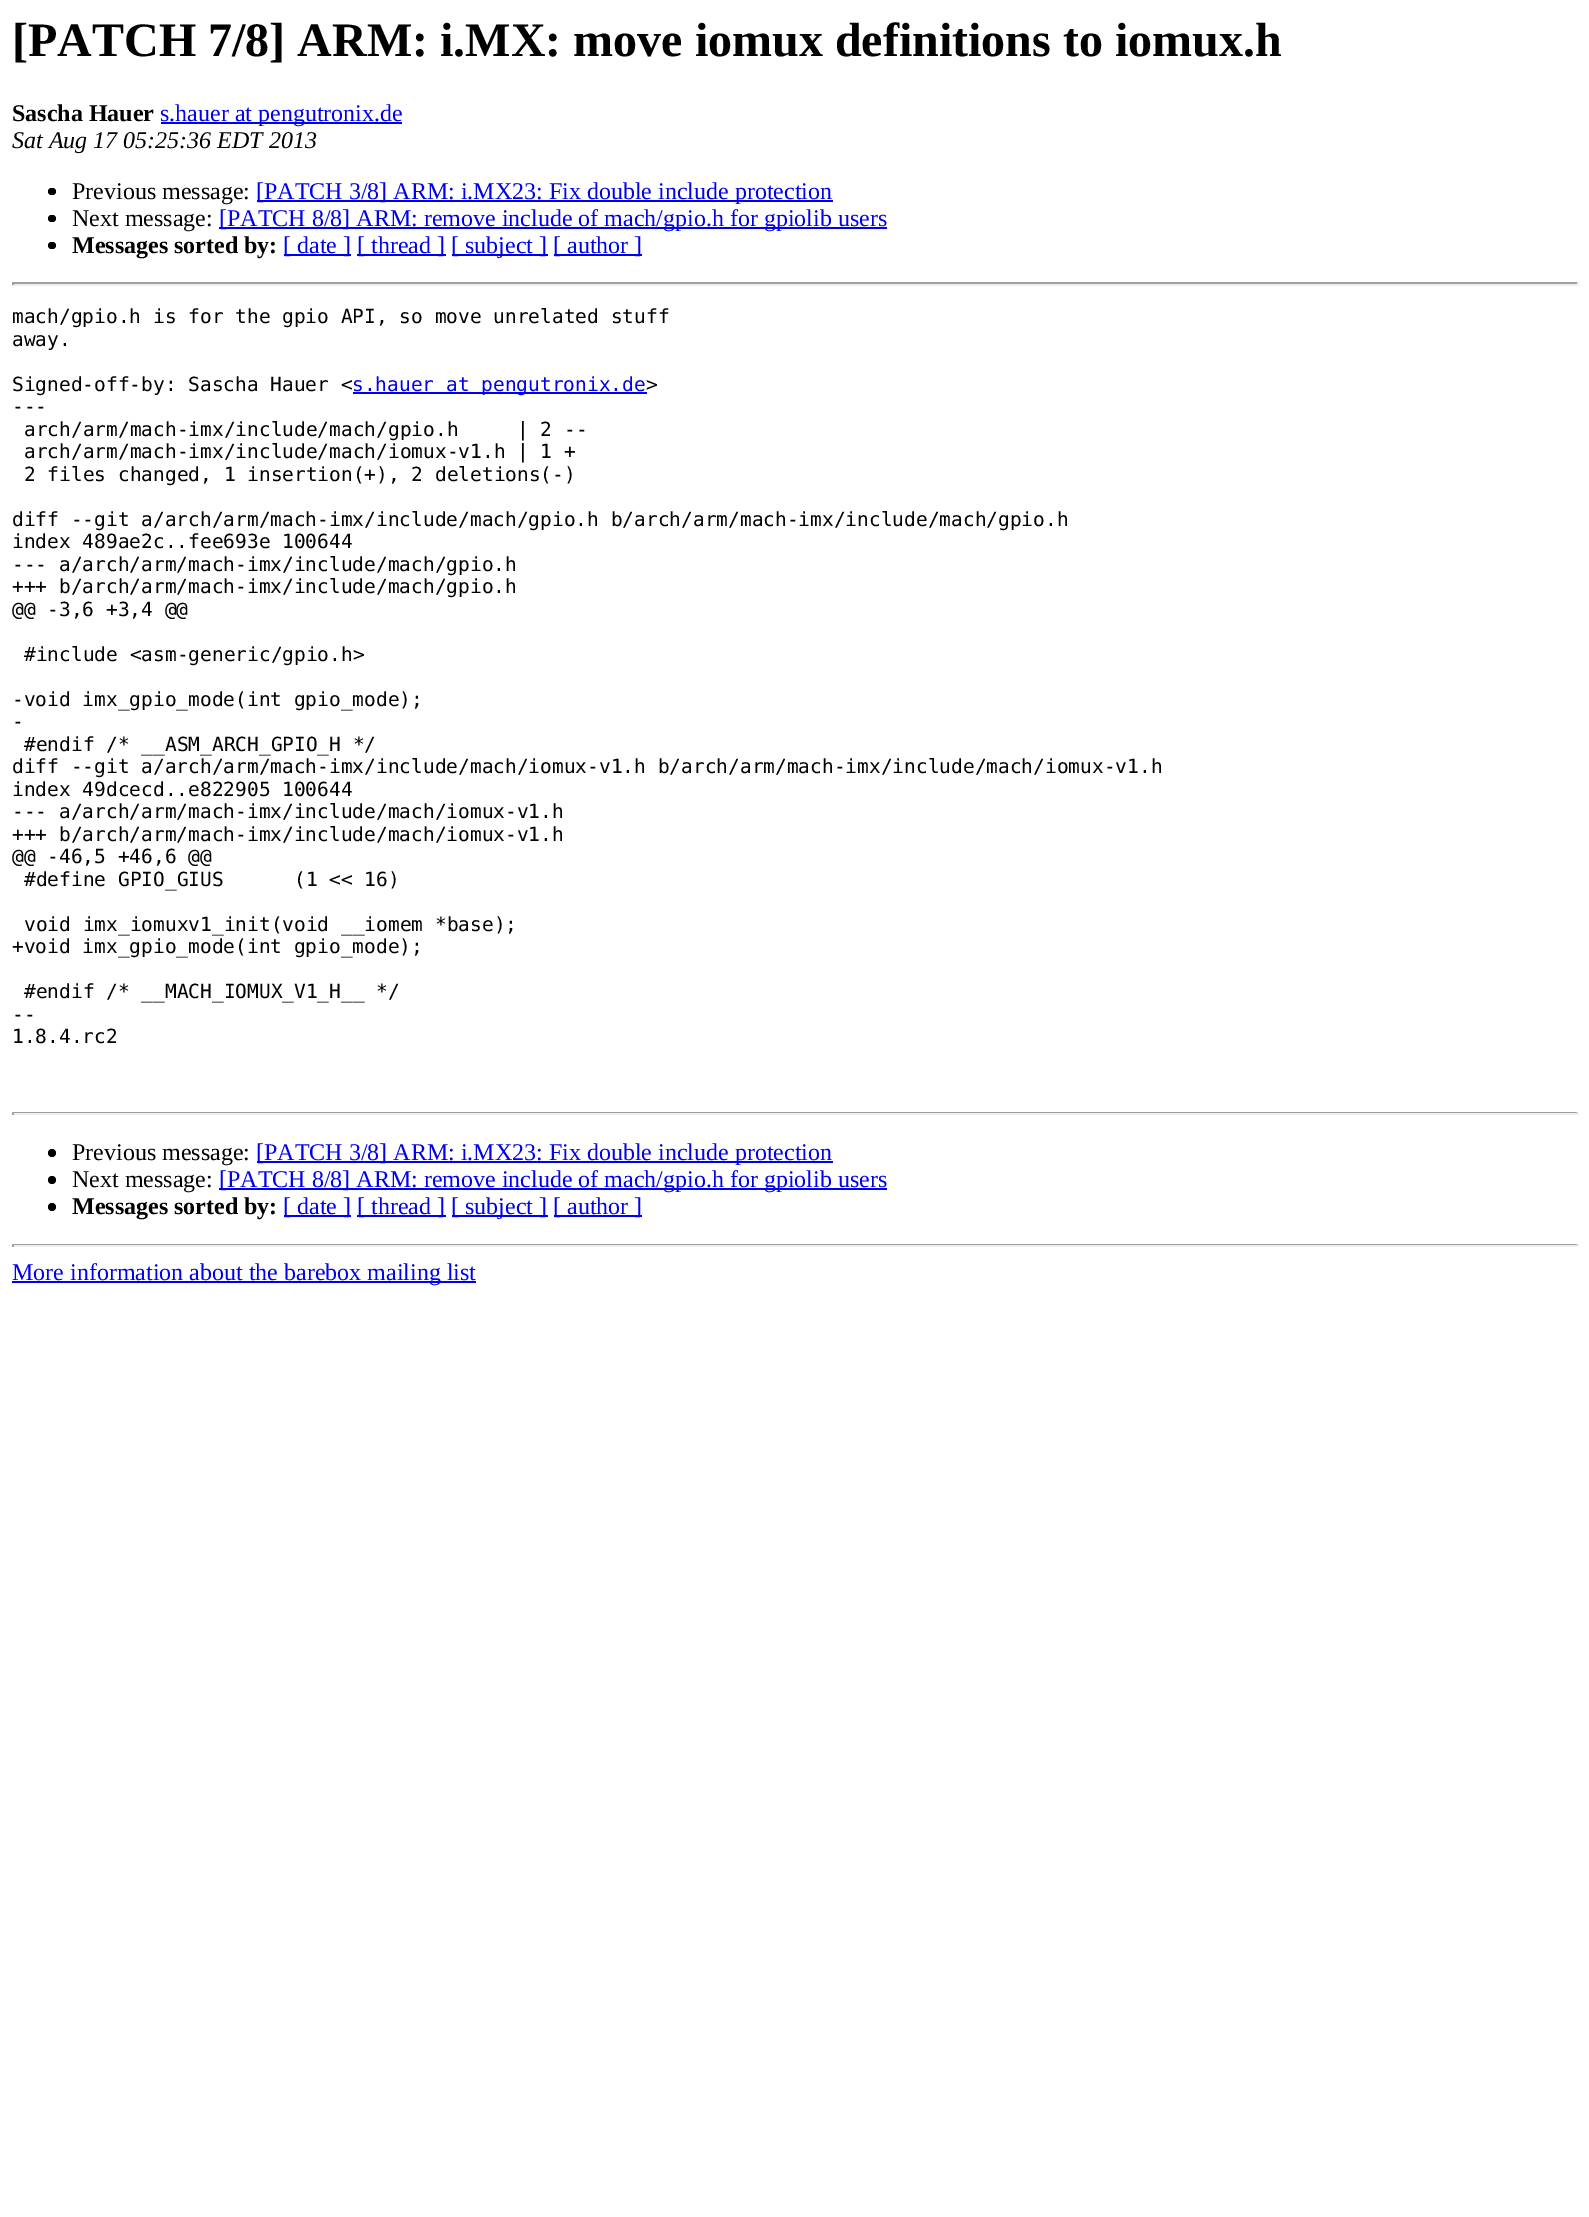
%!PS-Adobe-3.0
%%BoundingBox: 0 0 1589 2217
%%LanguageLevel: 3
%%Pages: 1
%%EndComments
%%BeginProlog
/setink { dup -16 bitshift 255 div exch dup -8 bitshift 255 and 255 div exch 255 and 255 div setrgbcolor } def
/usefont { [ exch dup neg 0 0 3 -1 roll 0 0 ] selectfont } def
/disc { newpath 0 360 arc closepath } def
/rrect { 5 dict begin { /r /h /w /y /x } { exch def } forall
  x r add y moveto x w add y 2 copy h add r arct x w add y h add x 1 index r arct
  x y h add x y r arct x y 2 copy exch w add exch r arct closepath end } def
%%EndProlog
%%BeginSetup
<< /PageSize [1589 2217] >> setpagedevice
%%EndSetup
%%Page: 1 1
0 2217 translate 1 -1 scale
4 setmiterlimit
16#FFFFFF setink
0 0 1589 2217 rectfill
/LiberationSerif-Bold 48 usefont
16#000000 setink
12 56 moveto ([PATCH 7/8] ARM: i.MX: move iomux definitions to iomux.h) show
/LiberationSerif-Bold 24 usefont
12 121 moveto (Sascha Hauer) show
16#0000EE setink
161 122 241 2 rectfill
/LiberationSerif-Regular 24 usefont
160 121 moveto (s.hauer at pengutronix.de) show
/LiberationSerif-Italic 24 usefont
16#000000 setink
12 148 moveto (Sat Aug 17 05:25:36 EDT 2013) show
48 188 8 7 3.5 rrect fill
/LiberationSerif-Regular 24 usefont
72 199 moveto (Previous message:) show
16#0000EE setink
257 200 576 2 rectfill
256 199 moveto ([PATCH 3/8] ARM: i.MX23: Fix double include protection) show
16#000000 setink
48 215 8 7 3.5 rrect fill
72 226 moveto (Next message:) show
16#0000EE setink
219 227 668 2 rectfill
219 226 moveto ([PATCH 8/8] ARM: remove include of mach/gpio.h for gpiolib users) show
16#000000 setink
48 242 8 7 3.5 rrect fill
/LiberationSerif-Bold 24 usefont
72 253 moveto (Messages sorted by:) show
16#0000EE setink
284 254 67 2 rectfill
/LiberationSerif-Regular 24 usefont
283 253 moveto ([ date ]) show
357 254 89 2 rectfill
357 253 moveto ([ thread ]) show
452 254 96 2 rectfill
451 253 moveto ([ subject ]) show
554 254 88 2 rectfill
553 253 moveto ([ author ]) show
[
    [12 282 1566 2 16#9F9F9F]
    [1577 282 2 3 16#EEEEEE]
    [12 284 1566 2 16#EEEEEE]
    [12 282 2 3 16#9F9F9F]
] { aload pop setink rectfill } forall
/DejaVuSansMono-Regular 19.5 usefont
16#000000 setink
[
    [(mach/gpio.h is for the gpio API, so move unrelated stuff) 12 323]
    [(away.) 12 346]
    [(Signed-off-by: Sascha Hauer <) 12 391]
] { aload pop moveto show } forall
16#0000EE setink
353 392 294 2 rectfill
352 391 moveto (s.hauer at pengutronix.de) show
16#000000 setink
[
    [(>) 646 391]
    [(---) 12 413]
    [(arch/arm/mach-imx/include/mach/gpio.h     | 2 --) 24 436]
    [(arch/arm/mach-imx/include/mach/iomux-v1.h | 1 +) 24 458]
    [(2 files changed, 1 insertion\(+\), 2 deletions\(-\)) 24 481]
    [(diff --git a/arch/arm/mach-imx/include/mach/gpio.h b/arch/arm/mach-imx/include/mach/gpio.h) 12 526]
    [(index 489ae2c..fee693e 100644) 12 548]
    [(--- a/arch/arm/mach-imx/include/mach/gpio.h) 12 571]
    [(+++ b/arch/arm/mach-imx/include/mach/gpio.h) 12 593]
    [(@@ -3,6 +3,4 @@) 12 616]
    [(#include <asm-generic/gpio.h>) 24 661]
    [(-void imx_gpio_mode\(int gpio_mode\);) 12 706]
    [(-) 12 728]
    [(#endif /* __ASM_ARCH_GPIO_H */) 24 751]
    [(diff --git a/arch/arm/mach-imx/include/mach/iomux-v1.h b/arch/arm/mach-imx/include/mach/iomux-v1.h) 12 773]
    [(index 49dcecd..e822905 100644) 12 796]
    [(--- a/arch/arm/mach-imx/include/mach/iomux-v1.h) 12 818]
    [(+++ b/arch/arm/mach-imx/include/mach/iomux-v1.h) 12 841]
    [(@@ -46,5 +46,6 @@) 12 863]
    [(#define GPIO_GIUS      \(1 << 16\)) 24 886]
    [(void imx_iomuxv1_init\(void __iomem *base\);) 24 931]
    [(+void imx_gpio_mode\(int gpio_mode\);) 12 953]
    [(#endif /* __MACH_IOMUX_V1_H__ */) 24 998]
    [(--) 12 1021]
    [(1.8.4.rc2) 12 1043]
] { aload pop moveto show } forall
[
    [12 1112 1566 1 16#9F9F9F]
    [1577 1112 2 3 16#EEEEEE]
    [12 1113 1566 2 16#EEEEEE]
    [12 1112 2 3 16#9F9F9F]
] { aload pop setink rectfill } forall
16#000000 setink
52 1153 4 disc fill
/LiberationSerif-Regular 24 usefont
72 1160 moveto (Previous message:) show
16#0000EE setink
257 1161 576 2 rectfill
256 1160 moveto ([PATCH 3/8] ARM: i.MX23: Fix double include protection) show
16#000000 setink
52 1180 4 disc fill
72 1187 moveto (Next message:) show
16#0000EE setink
219 1188 668 2 rectfill
219 1187 moveto ([PATCH 8/8] ARM: remove include of mach/gpio.h for gpiolib users) show
16#000000 setink
52 1207 4 disc fill
/LiberationSerif-Bold 24 usefont
72 1214 moveto (Messages sorted by:) show
16#0000EE setink
284 1215 67 2 rectfill
/LiberationSerif-Regular 24 usefont
283 1214 moveto ([ date ]) show
357 1215 89 2 rectfill
357 1214 moveto ([ thread ]) show
452 1215 96 2 rectfill
451 1214 moveto ([ subject ]) show
554 1215 88 2 rectfill
553 1214 moveto ([ author ]) show
[
    [12 1244 1566 1 16#9F9F9F]
    [1577 1244 2 3 16#EEEEEE]
    [12 1245 1566 2 16#EEEEEE]
    [12 1244 2 3 16#9F9F9F]
    [12 1281 464 2 16#0000EE]
] { aload pop setink rectfill } forall
12 1280 moveto (More information about the barebox mailing list) show
showpage
%%EOF
